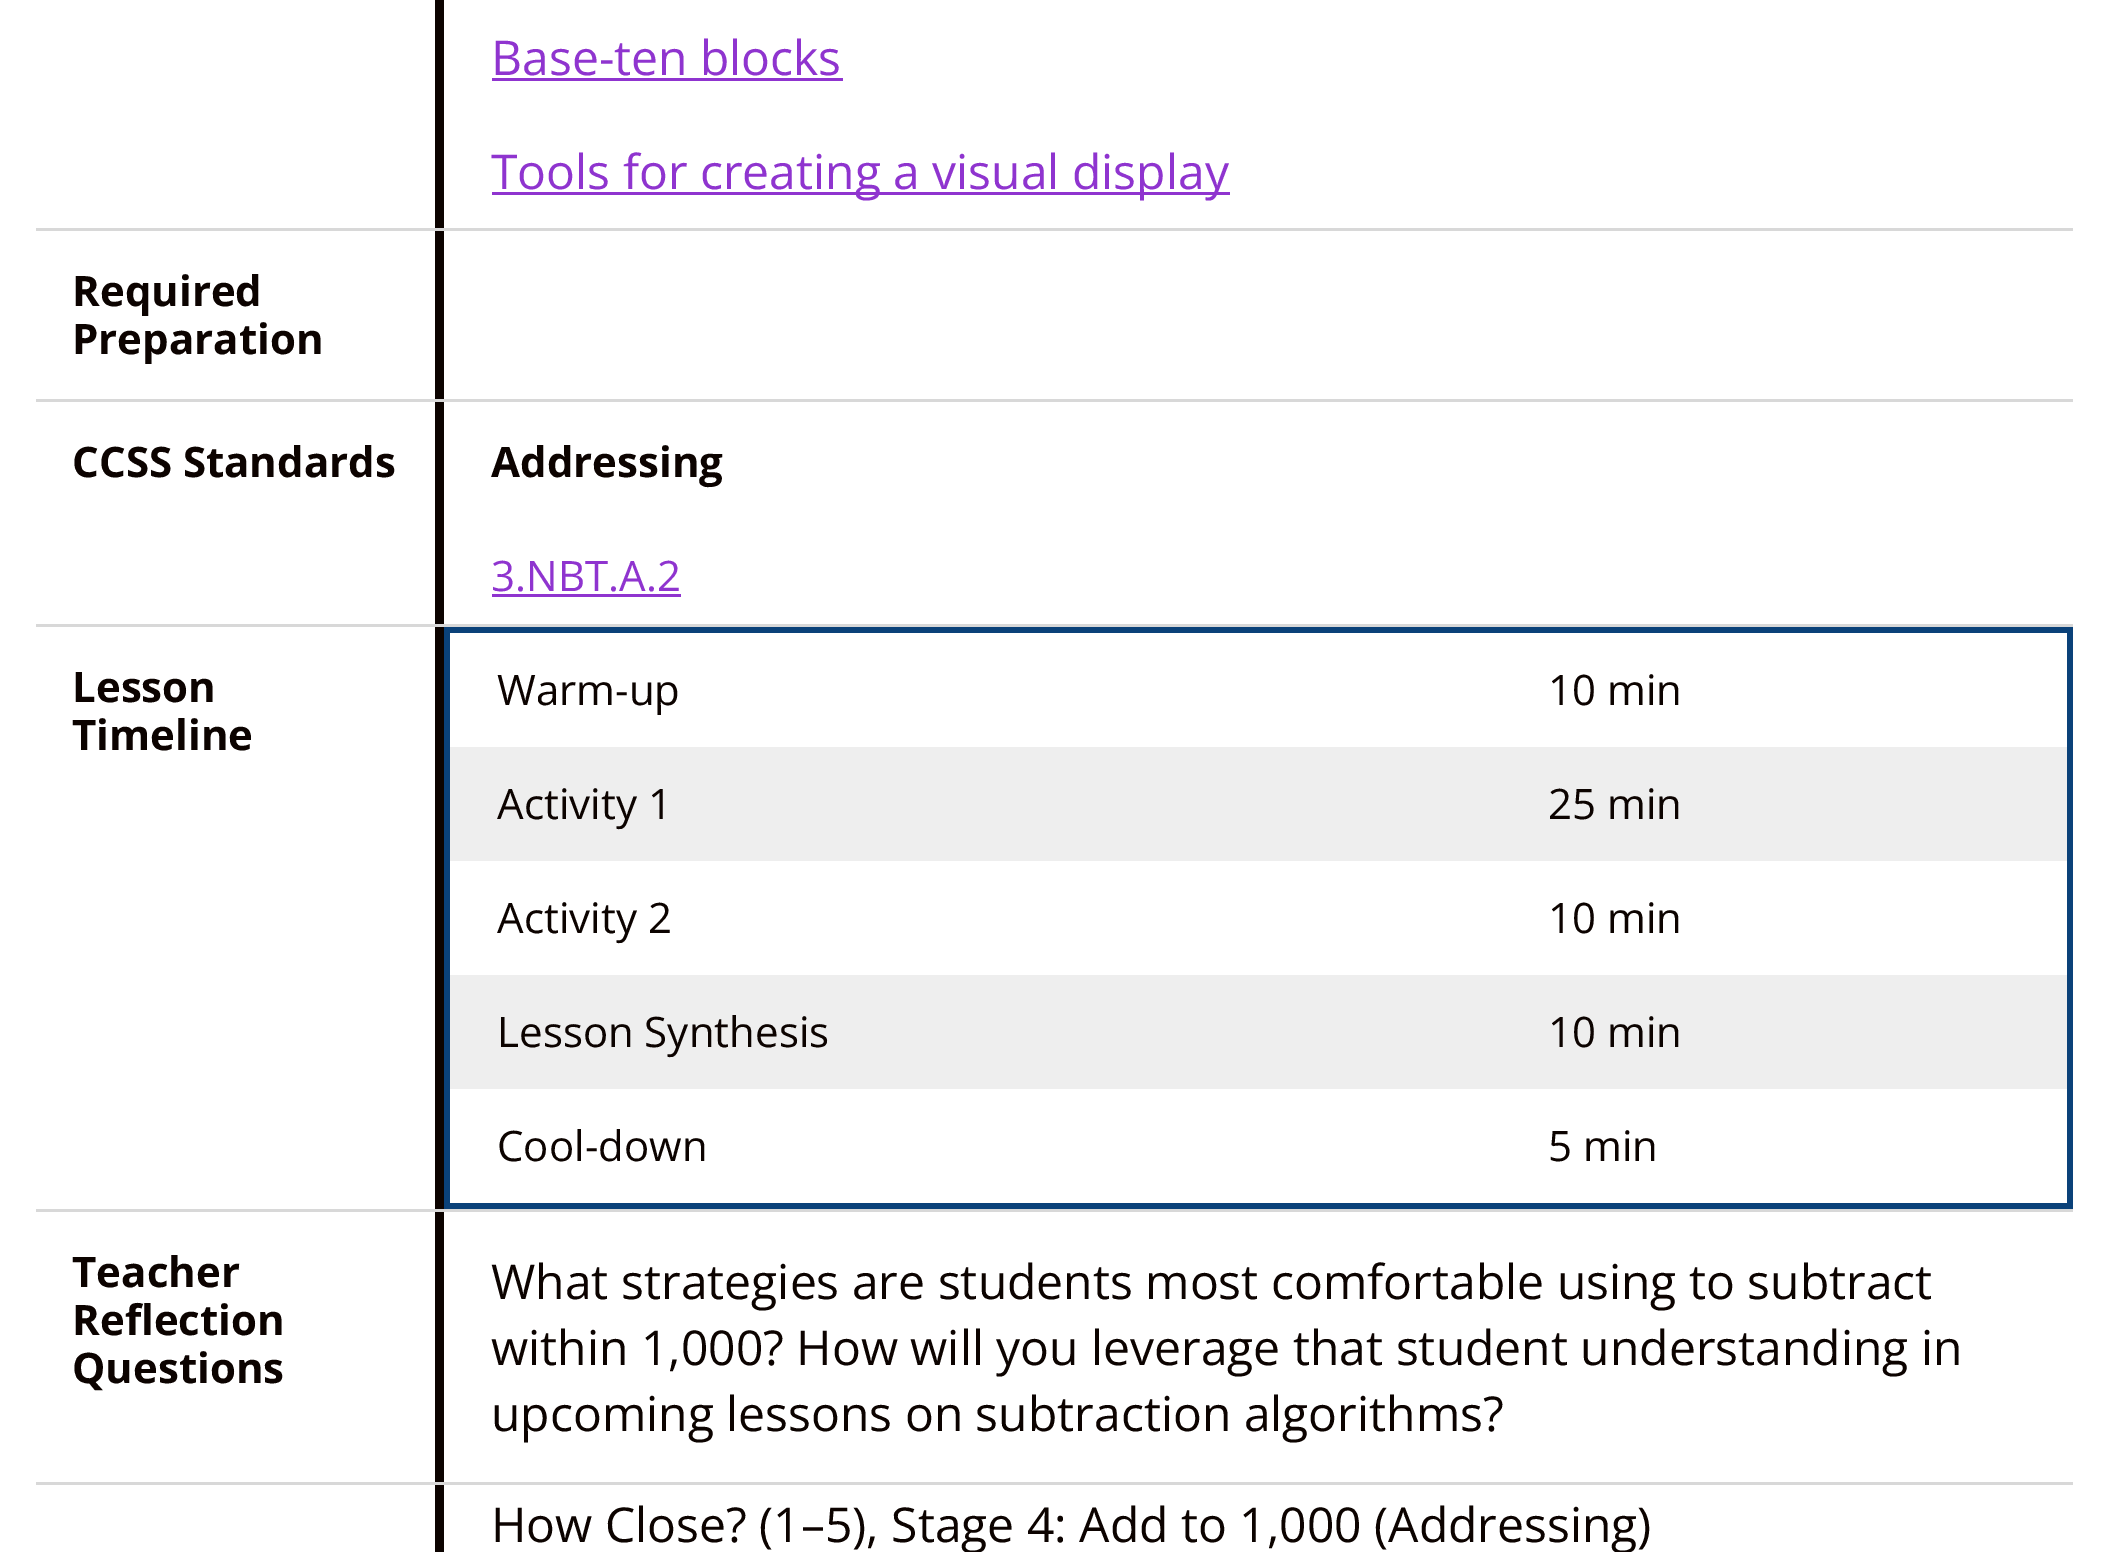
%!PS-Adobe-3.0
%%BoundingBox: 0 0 2107 1552
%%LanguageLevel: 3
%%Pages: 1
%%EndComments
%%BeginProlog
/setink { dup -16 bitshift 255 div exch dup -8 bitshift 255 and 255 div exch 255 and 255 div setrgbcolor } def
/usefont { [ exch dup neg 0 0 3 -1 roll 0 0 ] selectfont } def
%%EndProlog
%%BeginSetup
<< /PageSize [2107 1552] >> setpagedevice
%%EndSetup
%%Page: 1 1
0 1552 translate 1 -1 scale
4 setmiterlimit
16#FFFFFF setink
0 0 2107 1552 rectfill
16#0C0300 setink
435 0 9 228 rectfill
/OpenSans-Regular 48 usefont
16#8F34CF setink
491 75 moveto (Base-ten blocks) show
492 78 351 3 rectfill
492 192 738 3 rectfill
491 189 moveto (Tools for creating a visual display) show
16#D8D8D8 setink
36 228 2037 3 rectfill
16#0C0300 setink
435 231 9 168 rectfill
/OpenSans-Bold 42 usefont
72 306 moveto (Required) show
72 354 moveto (Preparation) show
16#D8D8D8 setink
36 399 2037 3 rectfill
16#0C0300 setink
435 402 9 222 rectfill
72 477 moveto (CCSS Standards) show
491 477 moveto (Addressing) show
/OpenSans-Regular 42 usefont
16#8F34CF setink
491 591 moveto (3.NBT.A.2) show
[
    [492 594 189 3 16#8F34CF]
    [36 624 2037 3 16#D8D8D8]
    [435 627 9 582 16#0C0300]
] { aload pop setink rectfill } forall
/OpenSans-Bold 42 usefont
72 702 moveto (Lesson) show
72 750 moveto (Timeline) show
[
    [444 627 1629 6 16#0A4179]
    [2067 627 6 582 16#0A4179]
    [444 1203 1629 6 16#0A4179]
    [444 627 6 582 16#0A4179]
] { aload pop setink rectfill } forall
/OpenSans-Regular 42 usefont
16#0C0300 setink
497 705 moveto (Warm-up) show
1548 705 moveto (10 min) show
16#EEEEEE setink
450 747 1617 114 rectfill
16#0C0300 setink
[
    [(Activity 1) 497 819]
    [(25 min) 1548 819]
    [(Activity 2) 497 933]
    [(10 min) 1548 933]
] { aload pop moveto show } forall
16#EEEEEE setink
450 975 1617 114 rectfill
16#0C0300 setink
[
    [(Lesson Synthesis) 497 1047]
    [(10 min) 1548 1047]
    [(Cool-down) 497 1161]
    [(5 min) 1548 1161]
] { aload pop moveto show } forall
16#D8D8D8 setink
36 1209 2037 3 rectfill
16#0C0300 setink
435 1212 9 270 rectfill
/OpenSans-Bold 42 usefont
[
    [(Teacher) 72 1287]
    [(Reflection) 72 1335]
    [(Questions) 72 1383]
] { aload pop moveto show } forall
/OpenSans-Regular 48 usefont
[
    [(What strategies are students most comfortable using to subtract) 491 1299]
    [(within 1,000? How will you leverage that student understanding in) 491 1365]
    [(upcoming lessons on subtraction algorithms?) 491 1431]
] { aload pop moveto show } forall
16#D8D8D8 setink
36 1482 2037 3 rectfill
16#0C0300 setink
435 1485 9 67 rectfill
491 1542 moveto (How Close? \(1–5\), Stage 4: Add to 1,000 \(Addressing\)) show
showpage
%%EOF
